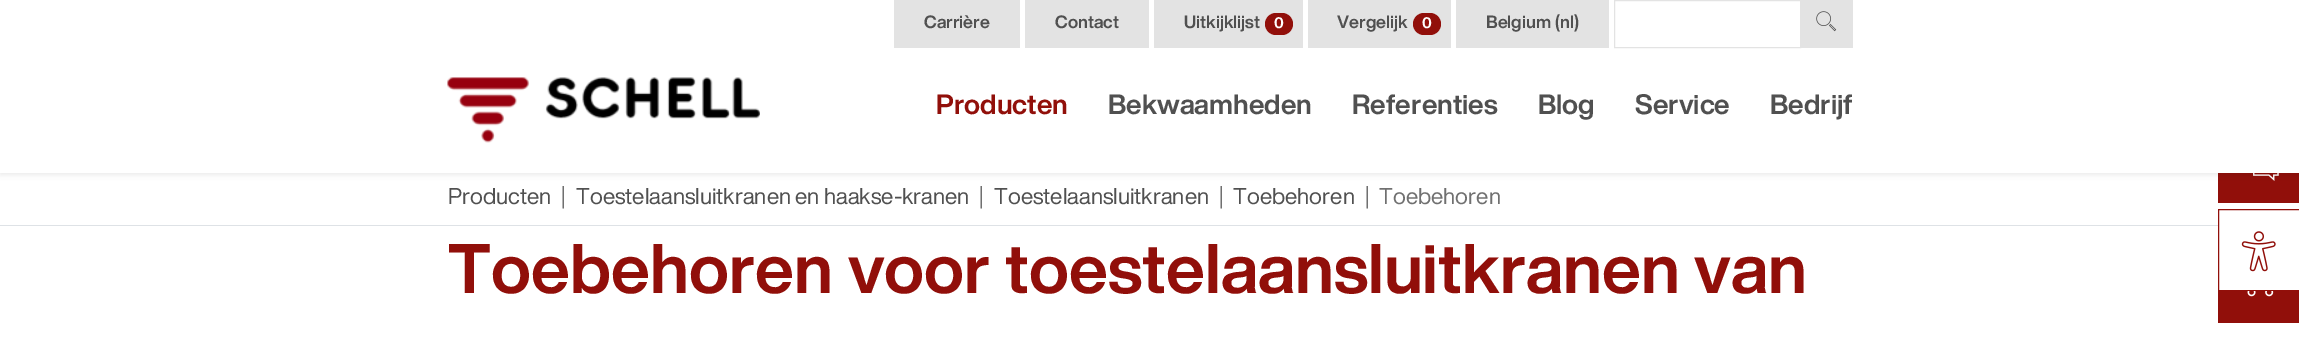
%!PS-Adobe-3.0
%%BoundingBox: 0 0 2299 358
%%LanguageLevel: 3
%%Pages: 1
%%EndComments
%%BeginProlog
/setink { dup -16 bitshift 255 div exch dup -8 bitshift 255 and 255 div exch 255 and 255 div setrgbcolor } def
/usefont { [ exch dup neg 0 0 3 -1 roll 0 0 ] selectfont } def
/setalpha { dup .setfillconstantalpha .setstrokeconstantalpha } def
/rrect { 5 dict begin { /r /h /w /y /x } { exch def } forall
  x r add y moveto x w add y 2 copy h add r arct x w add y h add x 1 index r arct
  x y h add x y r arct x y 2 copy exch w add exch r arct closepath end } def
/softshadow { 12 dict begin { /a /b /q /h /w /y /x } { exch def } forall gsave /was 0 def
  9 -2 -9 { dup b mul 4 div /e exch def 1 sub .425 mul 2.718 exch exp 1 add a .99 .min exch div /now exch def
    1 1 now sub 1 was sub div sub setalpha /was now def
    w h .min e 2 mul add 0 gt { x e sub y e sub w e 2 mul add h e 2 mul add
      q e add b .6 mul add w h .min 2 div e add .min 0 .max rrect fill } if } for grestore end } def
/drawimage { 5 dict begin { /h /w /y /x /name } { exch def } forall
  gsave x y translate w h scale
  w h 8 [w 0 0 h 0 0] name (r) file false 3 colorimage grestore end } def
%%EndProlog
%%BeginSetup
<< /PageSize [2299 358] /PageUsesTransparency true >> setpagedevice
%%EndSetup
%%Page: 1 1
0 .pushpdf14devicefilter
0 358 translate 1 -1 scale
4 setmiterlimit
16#FFFFFF setink
0 0 2299 358 rectfill
16#910F0A setink
2218 173 81 30 rectfill
(img3.raw) 2253 173 26 8 drawimage
gsave
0 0 moveto 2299 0 lineto 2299 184 lineto 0 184 lineto closepath 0 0 moveto 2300 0 lineto 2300 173 lineto 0 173 lineto closepath eoclip newpath
16#000000 setink
0 3 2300 172 0 2.5 0.07 softshadow
grestore
16#E3E3E3 setink
894 0 126 48 rectfill
/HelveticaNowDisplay-Bold 17.5 usefont
16#505050 setink
924 28 moveto (Carrière) show
16#E3E3E3 setink
1025 0 124 48 rectfill
16#505050 setink
1055 28 moveto (Contact) show
16#E3E3E3 setink
1154 0 149 48 rectfill
16#505050 setink
1184 28 moveto (Uitkijklijst) show
16#910F0A setink
1265 13 28 22 11 rrect fill
/HelveticaNowDisplay-Bold 15 usefont
16#FFFFFF setink
1274 28 moveto (0) show
16#E3E3E3 setink
1308 0 143 48 rectfill
/HelveticaNowDisplay-Bold 17.5 usefont
16#505050 setink
1337 28 moveto (Vergelijk) show
16#910F0A setink
1413 13 28 22 11 rrect fill
/HelveticaNowDisplay-Bold 15 usefont
16#FFFFFF setink
1422 28 moveto (0) show
16#E3E3E3 setink
1456 0 153 48 rectfill
/HelveticaNowDisplay-Bold 17.5 usefont
16#505050 setink
1486 28 moveto (Belgium \(nl\)) show
16#E3E3E3 setink
1614.5 0.5 186 47 rectstroke
1801 0 52 48 rectfill
(img1.raw) 1816 11 21 21 drawimage
(img2.raw) 447 77 313 66 drawimage
/HelveticaNowDisplay-Bold 27.5 usefont
16#910F0A setink
936 114 moveto (Producten) show
16#505050 setink
[
    [(Bekwaamheden) 1108 114]
    [(Referenties) 1352 114]
    [(Blog) 1538 114]
    [(Service) 1635 114]
    [(Bedrijf) 1770 114]
] { aload pop moveto show } forall
16#DEE2E6 setink
0 225 2218 1 rectfill
/HelveticaNowDisplay-Regular 22.5 usefont
16#505050 setink
448 204 moveto (Producten) show
16#707070 setink
561 204 moveto (|) show
16#505050 setink
576 204 moveto (Toestelaansluitkranen en haakse-kranen) show
16#707070 setink
979 204 moveto (|) show
16#505050 setink
994 204 moveto (Toestelaansluitkranen) show
16#707070 setink
1219 204 moveto (|) show
16#505050 setink
1233 204 moveto (Toebehoren) show
16#707070 setink
1365 204 moveto (|) show
1379 204 moveto (Toebehoren) show
/HelveticaNowDisplay-Bold 68.75 usefont
16#910F0A setink
448 293 moveto (Toebehoren voor toestelaansluitkranen van) show
2218.5 209.5 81 81 rectstroke
(img4.raw) 2241 231 35 41 drawimage
2218 291 81 32 rectfill
(img5.raw) 2247 291 27 6 drawimage
.poppdf14devicefilter showpage
%%EOF
